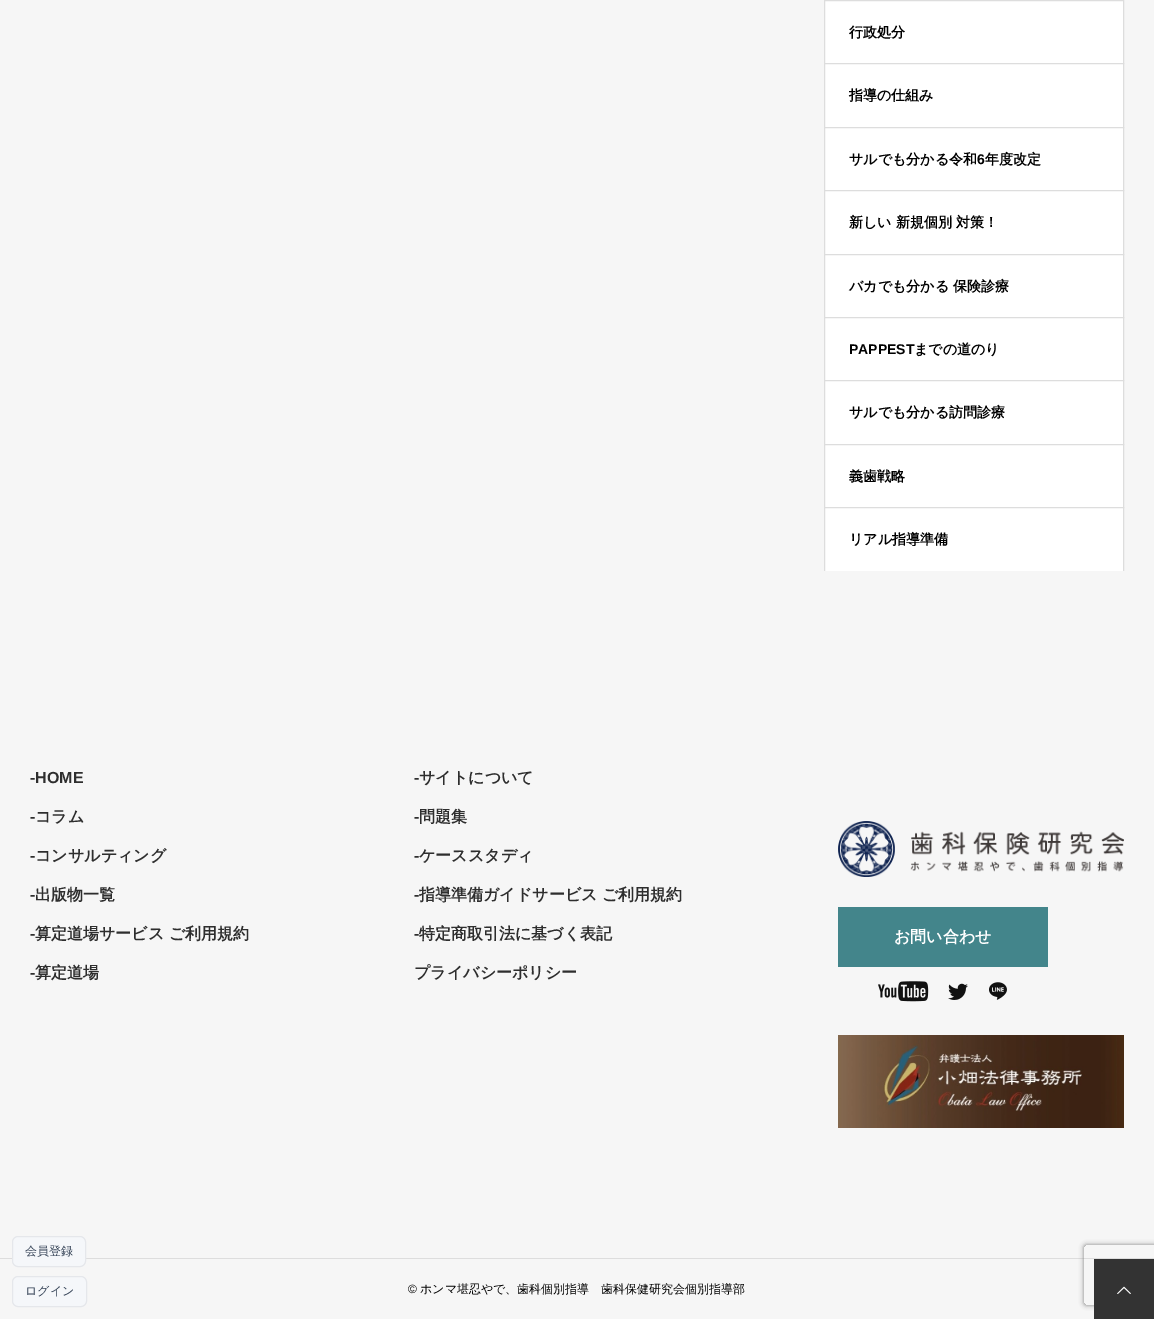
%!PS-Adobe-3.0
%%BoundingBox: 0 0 1154 1319
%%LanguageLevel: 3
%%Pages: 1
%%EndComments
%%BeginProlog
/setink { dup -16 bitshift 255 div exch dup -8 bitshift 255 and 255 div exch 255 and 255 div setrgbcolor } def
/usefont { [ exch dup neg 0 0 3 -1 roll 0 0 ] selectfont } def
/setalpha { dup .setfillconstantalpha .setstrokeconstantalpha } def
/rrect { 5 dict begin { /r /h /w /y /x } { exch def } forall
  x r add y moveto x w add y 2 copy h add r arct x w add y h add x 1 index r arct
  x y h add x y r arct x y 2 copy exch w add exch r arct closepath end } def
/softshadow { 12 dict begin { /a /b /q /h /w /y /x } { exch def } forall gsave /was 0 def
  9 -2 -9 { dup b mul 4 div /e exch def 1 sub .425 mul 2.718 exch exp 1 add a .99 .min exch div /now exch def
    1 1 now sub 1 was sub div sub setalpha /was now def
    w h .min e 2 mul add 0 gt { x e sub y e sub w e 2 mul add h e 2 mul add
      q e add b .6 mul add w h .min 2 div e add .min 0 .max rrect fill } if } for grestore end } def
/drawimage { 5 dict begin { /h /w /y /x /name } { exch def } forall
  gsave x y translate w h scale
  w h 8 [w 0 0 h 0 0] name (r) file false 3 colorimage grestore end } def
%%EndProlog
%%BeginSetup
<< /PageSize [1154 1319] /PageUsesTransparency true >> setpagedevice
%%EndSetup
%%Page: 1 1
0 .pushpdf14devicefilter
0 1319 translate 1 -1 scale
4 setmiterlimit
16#F6F6F6 setink
0 0 1154 1319 rectfill
16#FFFFFF setink
824.5 0.5 moveto 1123.5 0.5 lineto 1123.5 63.5 lineto 824.5 63.5 lineto closepath gsave fill grestore
16#DDDDDD setink
stroke
/WenQuanYiZenHei-Bold 14 usefont
16#000000 setink
849 37 moveto (行政処分) show
16#FFFFFF setink
824.5 63.5 moveto 1123.5 63.5 lineto 1123.5 127.5 lineto 824.5 127.5 lineto closepath gsave fill grestore
16#DDDDDD setink
stroke
16#000000 setink
849 100 moveto (指導の仕組み) show
16#FFFFFF setink
824.5 127.5 moveto 1123.5 127.5 lineto 1123.5 190.5 lineto 824.5 190.5 lineto closepath gsave fill grestore
16#DDDDDD setink
stroke
16#000000 setink
849 164 moveto (サルでも分かる令和) show
/LiberationSans-Bold 14 usefont
977 164 moveto (6) show
/WenQuanYiZenHei-Bold 14 usefont
985 164 moveto (年度改定) show
16#FFFFFF setink
824.5 190.5 moveto 1123.5 190.5 lineto 1123.5 254.5 lineto 824.5 254.5 lineto closepath gsave fill grestore
16#DDDDDD setink
stroke
16#000000 setink
849 227 moveto (新しい 新規個別 対策！) show
16#FFFFFF setink
824.5 254.5 moveto 1123.5 254.5 lineto 1123.5 317.5 lineto 824.5 317.5 lineto closepath gsave fill grestore
16#DDDDDD setink
stroke
16#000000 setink
849 291 moveto (バカでも分かる 保険診療) show
16#FFFFFF setink
824.5 317.5 moveto 1123.5 317.5 lineto 1123.5 380.5 lineto 824.5 380.5 lineto closepath gsave fill grestore
16#DDDDDD setink
stroke
/LiberationSans-Bold 14 usefont
16#000000 setink
849 354 moveto (PAPPEST) show
/WenQuanYiZenHei-Bold 14 usefont
914 354 moveto (までの道のり) show
16#FFFFFF setink
824.5 380.5 moveto 1123.5 380.5 lineto 1123.5 444.5 lineto 824.5 444.5 lineto closepath gsave fill grestore
16#DDDDDD setink
stroke
16#000000 setink
849 417 moveto (サルでも分かる訪問診療) show
16#FFFFFF setink
824.5 444.5 moveto 1123.5 444.5 lineto 1123.5 507.5 lineto 824.5 507.5 lineto closepath gsave fill grestore
16#DDDDDD setink
stroke
16#000000 setink
849 481 moveto (義歯戦略) show
16#FFFFFF setink
825 508 298 63 rectfill
gsave
794 0 360 571 rectclip
16#DDDDDD setink
824.5 507.5 299 64 rectstroke
grestore
16#000000 setink
849 544 moveto (リアル指導準備) show
/LiberationSans-Bold 16 usefont
16#2E2E2E setink
30 783 moveto (-HOME) show
414 783 moveto (-) show
/WenQuanYiZenHei-Bold 16 usefont
419 783 moveto (サイトについて) show
/LiberationSans-Bold 16 usefont
30 822 moveto (-) show
/WenQuanYiZenHei-Bold 16 usefont
35 822 moveto (コラム) show
/LiberationSans-Bold 16 usefont
414 822 moveto (-) show
/WenQuanYiZenHei-Bold 16 usefont
419 822 moveto (問題集) show
/LiberationSans-Bold 16 usefont
30 861 moveto (-) show
/WenQuanYiZenHei-Bold 16 usefont
35 861 moveto (コンサルティング) show
/LiberationSans-Bold 16 usefont
414 861 moveto (-) show
/WenQuanYiZenHei-Bold 16 usefont
419 861 moveto (ケーススタディ) show
/LiberationSans-Bold 16 usefont
30 900 moveto (-) show
/WenQuanYiZenHei-Bold 16 usefont
35 900 moveto (出版物一覧) show
/LiberationSans-Bold 16 usefont
414 900 moveto (-) show
/WenQuanYiZenHei-Bold 16 usefont
419 900 moveto (指導準備ガイドサービス ご利用規約) show
/LiberationSans-Bold 16 usefont
30 939 moveto (-) show
/WenQuanYiZenHei-Bold 16 usefont
35 939 moveto (算定道場サービス ご利用規約) show
/LiberationSans-Bold 16 usefont
414 939 moveto (-) show
/WenQuanYiZenHei-Bold 16 usefont
419 939 moveto (特定商取引法に基づく表記) show
/LiberationSans-Bold 16 usefont
30 978 moveto (-) show
/WenQuanYiZenHei-Bold 16 usefont
35 978 moveto (算定道場) show
414 978 moveto (プライバシーポリシー) show
(img1.raw) 838 821 286 56 drawimage
16#43858B setink
838 907 210 60 rectfill
16#FFFFFF setink
894 942 moveto (お問い合わせ) show
(img2.raw) 878 981 51 21 drawimage
(img3.raw) 948 983 20 17 drawimage
(img4.raw) 989 982 18 18 drawimage
(img5.raw) 838 1035 286 93 drawimage
16#DDDDDD setink
0 1258 1154 1 rectfill
/LiberationSans-Regular 12 usefont
16#000000 setink
408 1293 moveto (©) show
/WenQuanYiZenHei-Medium 12 usefont
420 1293 moveto (ホンマ堪忍やで、歯科個別指導　歯科保健研究会個別指導部) show
gsave
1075 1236 moveto 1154 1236 lineto 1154 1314 lineto 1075 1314 lineto closepath 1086 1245 moveto 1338 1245 lineto 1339 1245 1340 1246 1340 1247 curveto 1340 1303 lineto 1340 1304 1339 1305 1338 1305 curveto 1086 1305 lineto 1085 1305 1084 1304 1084 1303 curveto 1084 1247 lineto 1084 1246 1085 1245 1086 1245 curveto closepath eoclip newpath
16#808080 setink
1084 1245 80 60 2 2.5 1 softshadow
grestore
16#333333 setink
1094 1259 60 60 rectfill
(img6.raw) 1117 1286 14 8 drawimage
16#F5F7FA setink
12.5 1236.5 73 30 5.5 rrect gsave fill grestore
16#E5E7EB setink
stroke
16#334155 setink
25 1255 moveto (会員登録) show
16#F5F7FA setink
12.5 1276.5 74 30 5.5 rrect gsave fill grestore
16#E5E7EB setink
stroke
16#334155 setink
25 1295 moveto (ログイン) show
.poppdf14devicefilter showpage
%%EOF
